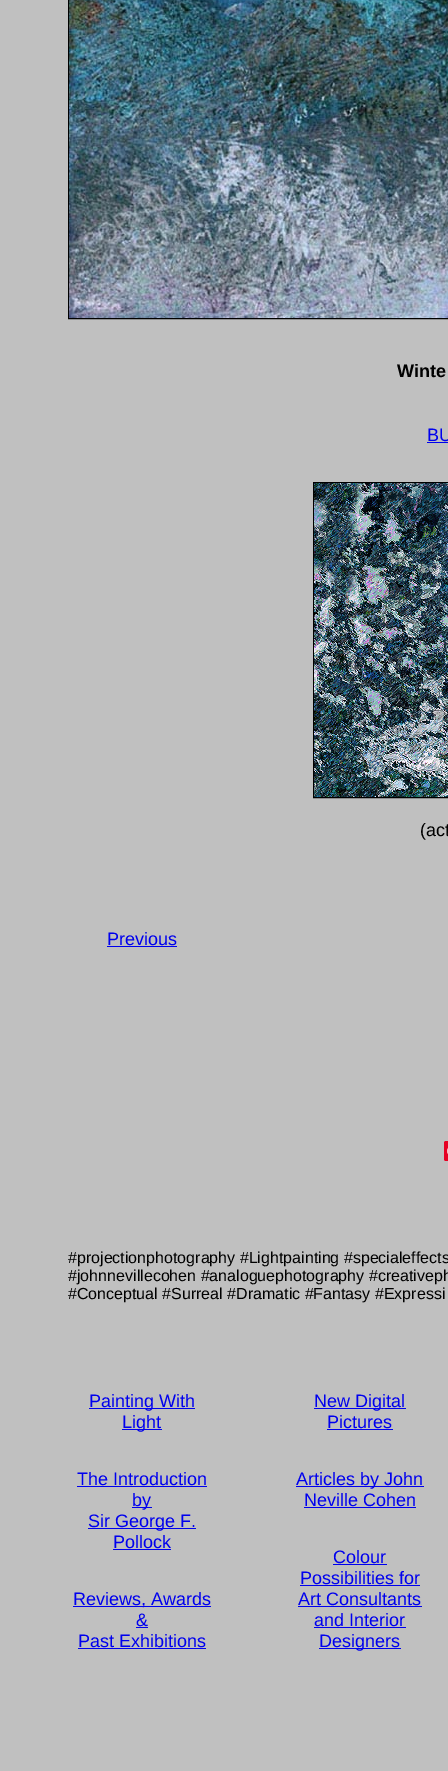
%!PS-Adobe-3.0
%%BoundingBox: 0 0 448 1771
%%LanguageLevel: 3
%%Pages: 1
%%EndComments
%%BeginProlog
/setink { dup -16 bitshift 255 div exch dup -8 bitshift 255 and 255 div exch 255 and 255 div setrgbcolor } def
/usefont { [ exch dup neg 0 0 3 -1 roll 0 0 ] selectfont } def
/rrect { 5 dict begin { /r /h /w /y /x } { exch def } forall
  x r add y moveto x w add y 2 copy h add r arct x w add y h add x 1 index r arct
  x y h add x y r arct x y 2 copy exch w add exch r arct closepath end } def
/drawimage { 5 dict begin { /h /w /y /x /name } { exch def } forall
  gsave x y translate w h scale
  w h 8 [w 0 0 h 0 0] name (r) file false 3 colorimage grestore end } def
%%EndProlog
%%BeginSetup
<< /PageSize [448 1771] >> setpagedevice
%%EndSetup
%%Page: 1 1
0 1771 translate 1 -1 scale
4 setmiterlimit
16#C0C0C0 setink
0 0 448 1771 rectfill
16#000000 setink
68.5 -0.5 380 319 rectstroke
(img1.raw) 69 0 379 318 drawimage
/LiberationSans-Bold 18 usefont
397 377 moveto (Winte) show
/LiberationSans-Regular 18 usefont
16#0000EE setink
427 441 moveto (BU) show
427 442 21 1 rectfill
16#000000 setink
313.5 482.5 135 315 rectstroke
(img2.raw) 314 483 134 314 drawimage
420 836 moveto (\(act) show
16#0000EE setink
107 945 moveto (Previous) show
107 946 70 1 rectfill
16#E60023 setink
444 1141 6 20 2 rrect fill
(img3.raw) 447 1148 1 6 drawimage
/LiberationSans-Regular 16 usefont
16#000000 setink
[
    [(#projectionphotography #Lightpainting #specialeffects) 68 1263]
    [(#johnnevillecohen #analoguephotography #creativeph) 68 1281]
    [(#Conceptual #Surreal #Dramatic #Fantasy #Expressi) 68 1299]
] { aload pop moveto show } forall
16#0000EE setink
89 1408 106 1 rectfill
/LiberationSans-Regular 18 usefont
89 1407 moveto (Painting With) show
122 1429 40 1 rectfill
122 1428 moveto (Light) show
77 1485 moveto (The Introduction) show
77 1486 130 1 rectfill
132 1507 20 1 rectfill
132 1506 moveto (by) show
88 1528 108 1 rectfill
88 1527 moveto (Sir George F.) show
113 1548 moveto (Pollock) show
113 1549 58 1 rectfill
73 1606 138 1 rectfill
73 1605 moveto (Reviews, Awards) show
136 1626 moveto (&) show
136 1627 12 1 rectfill
78 1647 moveto (Past Exhibitions) show
78 1648 128 1 rectfill
314 1408 92 1 rectfill
314 1407 moveto (New Digital) show
327 1428 moveto (Pictures) show
327 1429 66 1 rectfill
296 1486 128 1 rectfill
296 1485 moveto (Articles by John) show
304 1506 moveto (Neville Cohen) show
304 1507 112 1 rectfill
333 1563 moveto (Colour) show
333 1564 54 1 rectfill
300 1584 moveto (Possibilities for) show
300 1585 120 1 rectfill
298 1605 moveto (Art Consultants) show
298 1606 124 1 rectfill
314 1626 moveto (and Interior) show
314 1627 92 1 rectfill
319 1648 82 1 rectfill
319 1647 moveto (Designers) show
showpage
%%EOF
